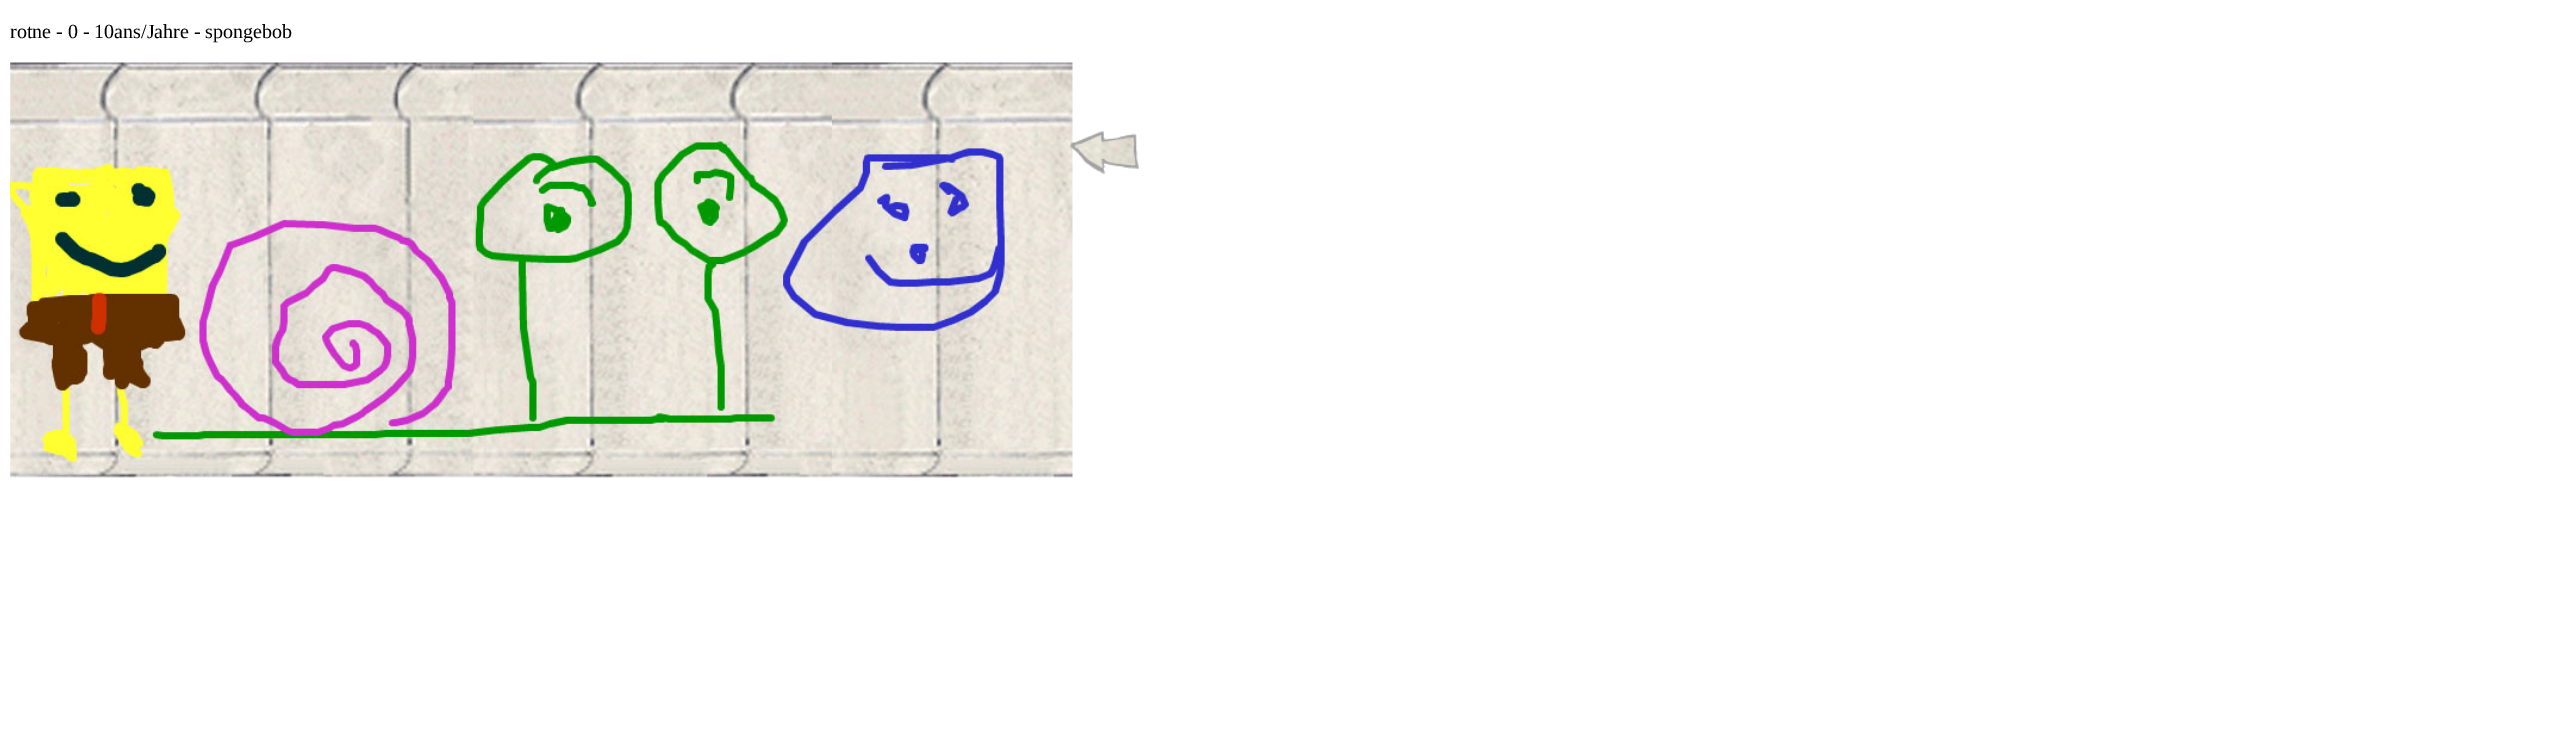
%!PS-Adobe-3.0
%%BoundingBox: 0 0 2552 732
%%LanguageLevel: 3
%%Pages: 1
%%EndComments
%%BeginProlog
/setink { dup -16 bitshift 255 div exch dup -8 bitshift 255 and 255 div exch 255 and 255 div setrgbcolor } def
/usefont { [ exch dup neg 0 0 3 -1 roll 0 0 ] selectfont } def
/drawimage { 5 dict begin { /h /w /y /x /name } { exch def } forall
  gsave x y translate w h scale
  w h 8 [w 0 0 h 0 0] name (r) file false 3 colorimage grestore end } def
%%EndProlog
%%BeginSetup
<< /PageSize [2552 732] >> setpagedevice
%%EndSetup
%%Page: 1 1
0 732 translate 1 -1 scale
4 setmiterlimit
16#FFFFFF setink
0 0 2552 732 rectfill
/LiberationSerif-Regular 20 usefont
16#000000 setink
10 38 moveto (rotne - 0 - 10ans/Jahre - spongebob) show
(img1.raw) 10 62 1063 416 drawimage
(img2.raw) 1070 131 69 43 drawimage
showpage
%%EOF
